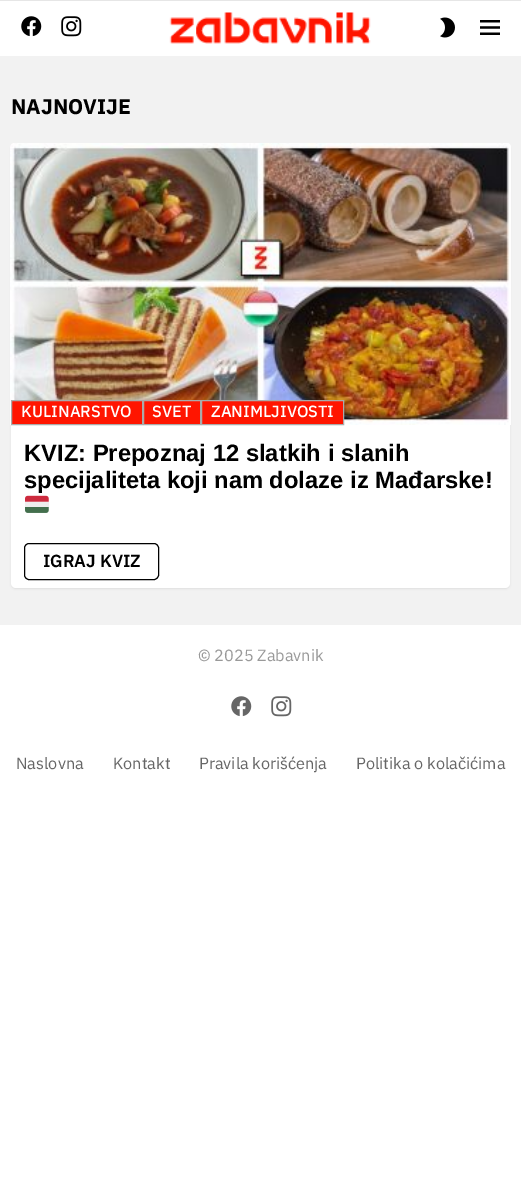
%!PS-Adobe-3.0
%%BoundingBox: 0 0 521 1193
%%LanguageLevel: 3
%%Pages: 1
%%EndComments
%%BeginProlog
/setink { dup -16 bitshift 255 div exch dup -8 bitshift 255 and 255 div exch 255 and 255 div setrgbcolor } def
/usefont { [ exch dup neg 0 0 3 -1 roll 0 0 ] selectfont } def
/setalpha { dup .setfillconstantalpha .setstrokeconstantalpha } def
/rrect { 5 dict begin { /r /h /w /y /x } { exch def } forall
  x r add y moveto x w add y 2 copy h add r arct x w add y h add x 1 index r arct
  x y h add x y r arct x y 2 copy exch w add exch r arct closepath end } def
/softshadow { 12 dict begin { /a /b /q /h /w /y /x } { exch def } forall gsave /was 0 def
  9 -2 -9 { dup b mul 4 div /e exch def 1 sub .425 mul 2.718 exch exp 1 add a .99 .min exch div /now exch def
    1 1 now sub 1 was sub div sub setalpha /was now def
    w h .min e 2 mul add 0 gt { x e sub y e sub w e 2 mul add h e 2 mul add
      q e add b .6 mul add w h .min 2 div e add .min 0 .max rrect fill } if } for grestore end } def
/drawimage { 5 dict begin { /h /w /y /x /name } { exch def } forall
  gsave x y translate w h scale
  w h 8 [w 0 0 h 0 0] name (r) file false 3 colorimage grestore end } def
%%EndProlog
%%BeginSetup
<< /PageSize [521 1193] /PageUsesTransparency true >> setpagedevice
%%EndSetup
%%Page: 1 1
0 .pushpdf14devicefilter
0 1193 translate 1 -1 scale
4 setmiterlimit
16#FFFFFF setink
0 0 521 1193 rectfill
16#E6E6E6 setink
0 0 521 1 rectfill
(img1.raw) 21 16 21 21 drawimage
(img2.raw) 61 16 21 21 drawimage
(img3.raw) 169 12 202 32 drawimage
(img4.raw) 440 17 15 21 drawimage
(img5.raw) 480 20 20 15 drawimage
16#F2F2F2 setink
0 56 521 569 rectfill
/IBMPlexSans-Bold 21.25 usefont
16#000000 setink
11 114 moveto (NAJNOVIJE) show
11 145 499 444 5 1 0.07 softshadow
16#FFFFFF setink
11 144 499 444 5 rrect fill
(img6.raw) 10 143 501 282 drawimage
16#FF1500 setink
11.5 400.5 moveto 142.5 400.5 lineto 142.5 424.5 lineto 11.5 424.5 lineto closepath gsave fill grestore
16#AAAAAA setink
stroke
/IBMPlexSans-Medium 16.25 usefont
16#FFFFFF setink
21 417 moveto (KULINARSTVO) show
16#FF1500 setink
143.5 400.5 moveto 200.5 400.5 lineto 200.5 424.5 lineto 143.5 424.5 lineto closepath gsave fill grestore
16#AAAAAA setink
stroke
16#FFFFFF setink
152 417 moveto (SVET) show
16#FF1500 setink
201.5 400.5 moveto 343.5 400.5 lineto 343.5 424.5 lineto 201.5 424.5 lineto closepath gsave fill grestore
16#AAAAAA setink
stroke
16#FFFFFF setink
211 417 moveto (ZANIMLJIVOSTI) show
/LiberationSans-Bold 23.75 usefont
16#000000 setink
24 461 moveto (KVIZ: Prepoznaj 12 slatkih i slanih) show
24 488 moveto (specijaliteta koji nam dolaze iz Mađarske!) show
(img7.raw) 25 495 24 18 drawimage
24.5 543.5 134 36 4.5 rrect stroke
/IBMPlexSans-SemiBold 17.5 usefont
43 567 moveto (IGRAJ KVIZ) show
/IBMPlexSans-Regular 16.25 usefont
16#999999 setink
198 661 moveto (© 2025 Zabavnik) show
(img8.raw) 231 696 21 21 drawimage
(img9.raw) 271 696 21 21 drawimage
16#666666 setink
[
    [(Naslovna) 16 769]
    [(Kontakt) 113 769]
    [(Pravila korišćenja) 199 769]
    [(Politika o kolačićima) 356 769]
] { aload pop moveto show } forall
.poppdf14devicefilter showpage
%%EOF
